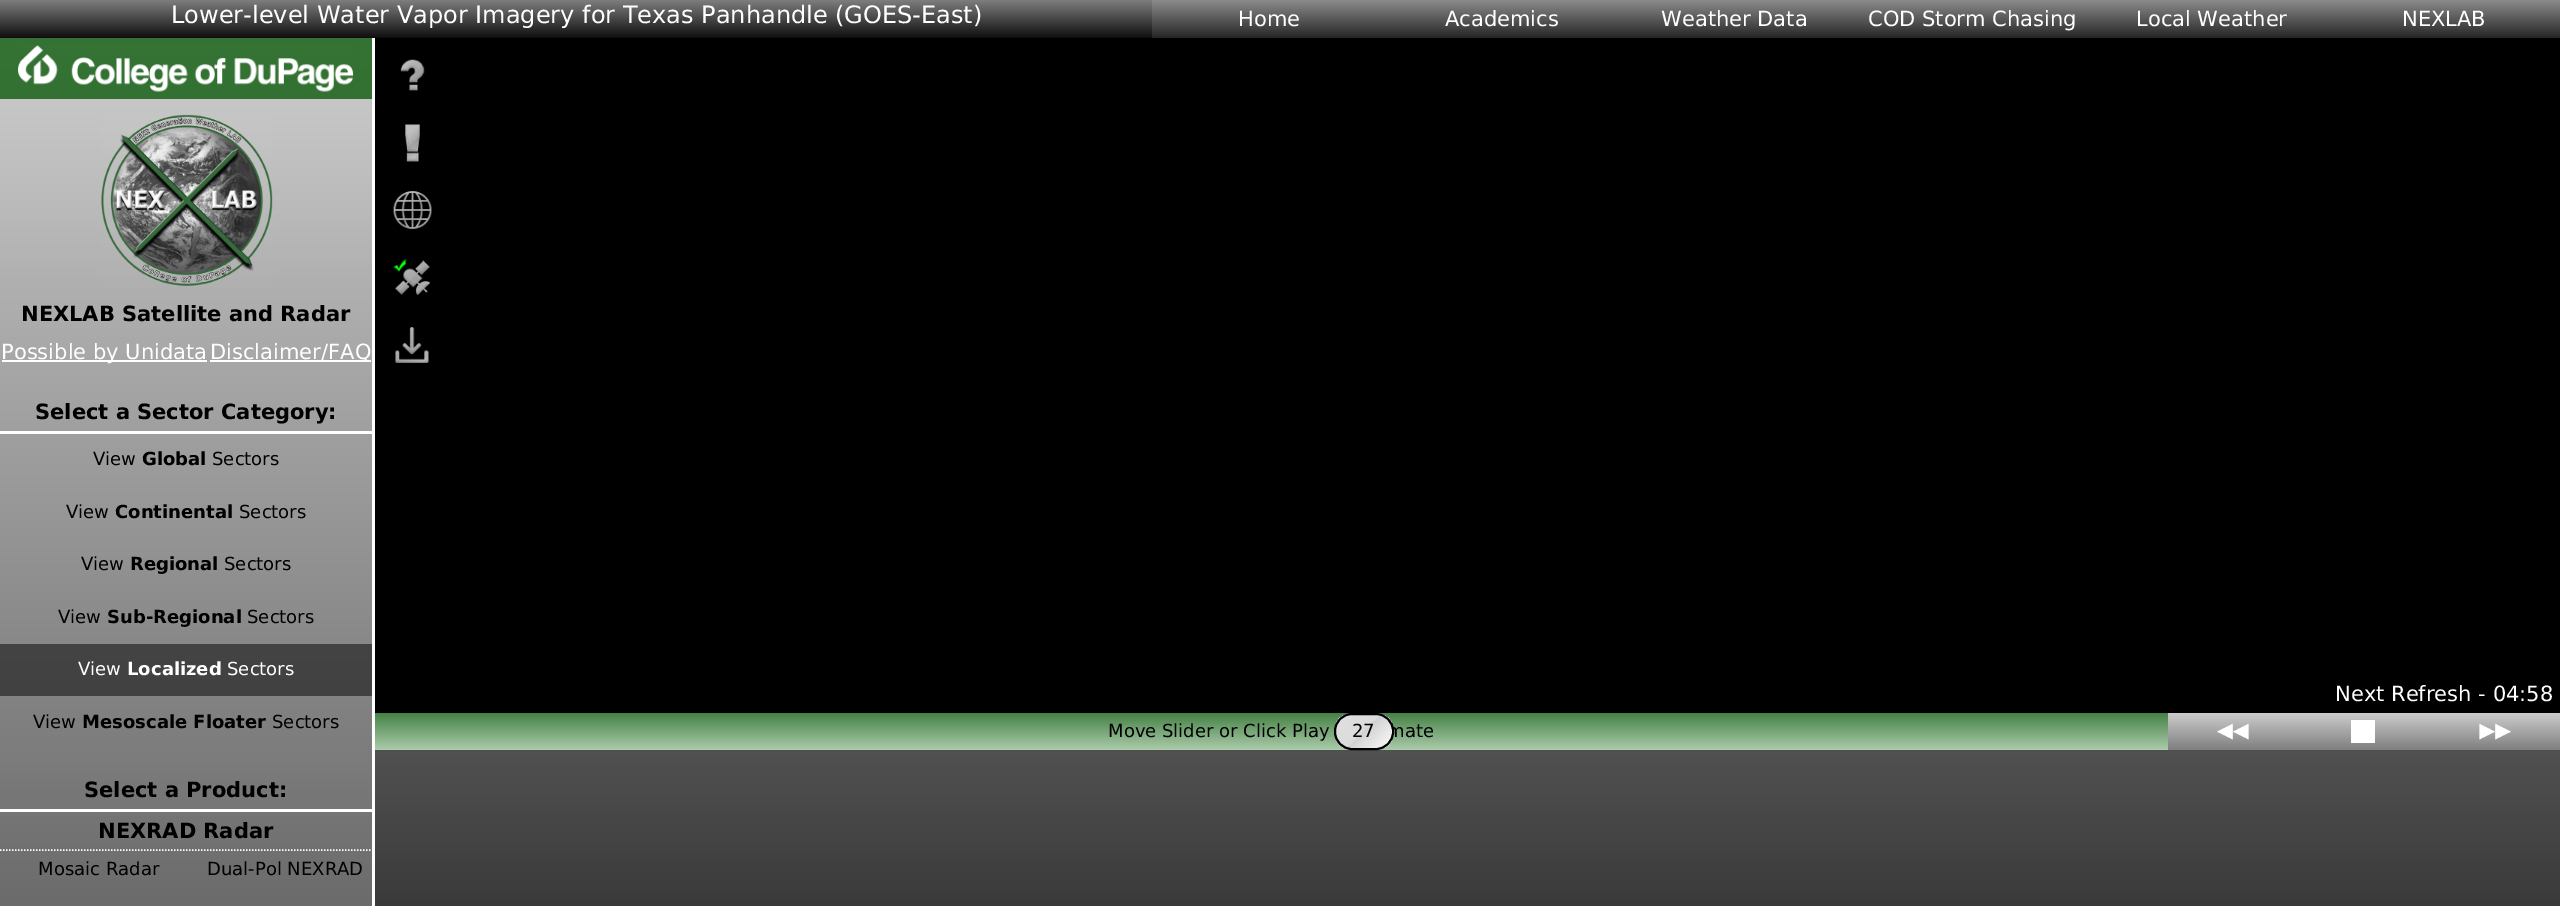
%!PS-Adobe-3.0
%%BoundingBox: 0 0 2560 906
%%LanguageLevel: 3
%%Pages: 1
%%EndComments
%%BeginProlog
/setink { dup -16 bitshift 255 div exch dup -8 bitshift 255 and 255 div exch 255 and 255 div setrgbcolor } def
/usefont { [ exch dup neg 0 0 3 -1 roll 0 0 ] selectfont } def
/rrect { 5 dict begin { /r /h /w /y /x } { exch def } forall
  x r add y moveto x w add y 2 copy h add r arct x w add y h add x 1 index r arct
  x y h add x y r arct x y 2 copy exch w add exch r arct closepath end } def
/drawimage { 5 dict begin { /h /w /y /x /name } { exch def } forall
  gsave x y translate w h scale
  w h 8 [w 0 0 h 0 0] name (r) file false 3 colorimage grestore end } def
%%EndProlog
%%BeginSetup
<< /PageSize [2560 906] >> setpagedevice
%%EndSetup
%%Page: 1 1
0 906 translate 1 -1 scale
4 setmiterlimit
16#FFFFFF setink
0 0 2560 906 rectfill
gsave 375 750 moveto 2560 750 lineto 2560 906 lineto 375 906 lineto closepath clip newpath
<< /ShadingType 2 /ColorSpace /DeviceRGB /Coords [1280 0 1280 906] /Extend [true true] /Function << /FunctionType 3 /Domain [0 1] /Functions [<< /FunctionType 2 /Domain [0 1] /C0 [0.776 0.776 0.776] /C1 [0.576 0.576 0.576] /N 1 >> << /FunctionType 2 /Domain [0 1] /C0 [0.576 0.576 0.576] /C1 [0.227 0.227 0.227] /N 1 >>] /Bounds [0.33] /Encode [0 1 0 1] >> >> shfill grestore
gsave 0 99 moveto 372 99 lineto 372 906 lineto 0 906 lineto closepath clip newpath
<< /ShadingType 2 /ColorSpace /DeviceRGB /Coords [1280 0 1280 906] /Extend [true true] /Function << /FunctionType 3 /Domain [0 1] /Functions [<< /FunctionType 2 /Domain [0 1] /C0 [0.831 0.831 0.831] /C1 [0.682 0.682 0.682] /N 1 >> << /FunctionType 2 /Domain [0 1] /C0 [0.682 0.682 0.682] /C1 [0.42 0.42 0.42] /N 1 >>] /Bounds [0.33] /Encode [0 1 0 1] >> >> shfill grestore
gsave 0 644 moveto 372 644 lineto 372 696 lineto 0 696 lineto closepath clip newpath
<< /ShadingType 2 /ColorSpace /DeviceRGB /Coords [1280 0 1280 906] /Extend [true true] /Function << /FunctionType 3 /Domain [0 1] /Functions [<< /FunctionType 2 /Domain [0 1] /C0 [0.416 0.416 0.416] /C1 [0.341 0.341 0.341] /N 1 >> << /FunctionType 2 /Domain [0 1] /C0 [0.341 0.341 0.341] /C1 [0.212 0.212 0.212] /N 1 >>] /Bounds [0.33] /Encode [0 1 0 1] >> >> shfill grestore
gsave 0 38 moveto 372 38 lineto 372 99 lineto 0 99 lineto closepath clip newpath
<< /ShadingType 2 /ColorSpace /DeviceRGB /Coords [1280 0 1280 906] /Extend [true true] /Function << /FunctionType 3 /Domain [0 1] /Functions [<< /FunctionType 2 /Domain [0 1] /C0 [0.208 0.455 0.208] /C1 [0.173 0.42 0.173] /N 1 >> << /FunctionType 2 /Domain [0 1] /C0 [0.173 0.42 0.173] /C1 [0.106 0.353 0.106] /N 1 >>] /Bounds [0.33] /Encode [0 1 0 1] >> >> shfill grestore
gsave 0 0 moveto 1152 0 lineto 1152 38 lineto 0 38 lineto closepath clip newpath
<< /ShadingType 2 /ColorSpace /DeviceRGB /Coords [1280 0 1280 38] /Extend [true true] /Function << /FunctionType 2 /Domain [0 1] /C0 [0.49 0.494 0.49] /C1 [0.055 0.055 0.055] /N 1 >> >> shfill grestore
gsave 1152 0 moveto 2560 0 lineto 2560 38 lineto 1152 38 lineto closepath clip newpath
<< /ShadingType 2 /ColorSpace /DeviceRGB /Coords [1280 0 1280 38] /Extend [true true] /Function << /FunctionType 2 /Domain [0 1] /C0 [0.541 0.545 0.541] /C1 [0.149 0.149 0.149] /N 1 >> >> shfill grestore
/DejaVuSans-Regular 24 usefont
171 23 moveto (Lower-level Water Vapor Imagery for Texas Panhandle \(GOES-East\)) show
/DejaVuSans-Regular 21 usefont
[
    [(Home) 1238 26]
    [(Academics) 1445 26]
    [(Weather Data) 1661 26]
    [(COD Storm Chasing) 1868 26]
    [(Local Weather) 2136 26]
    [(NEXLAB) 2402 26]
] { aload pop moveto show } forall
(img1.raw) 18 45 336 47 drawimage
(img2.raw) 101 114 172 172 drawimage
/DejaVuSans-Bold 21 usefont
16#000000 setink
21 321 moveto (NEXLAB Satellite and Radar) show
16#FFFFFF setink
2 360 205 2 rectfill
/DejaVuSans-Regular 21 usefont
1 359 moveto (Possible by Unidata) show
210 360 161 2 rectfill
210 359 moveto (Disclaimer/FAQ) show
0 431 372 3 rectfill
/DejaVuSans-Bold 21 usefont
16#000000 setink
35 419 moveto (Select a Sector Category:) show
/DejaVuSans-Regular 18 usefont
93 465 moveto (View) show
/DejaVuSans-Bold 18 usefont
142 465 moveto (Global) show
/DejaVuSans-Regular 18 usefont
212 465 moveto (Sectors) show
66 518 moveto (View) show
/DejaVuSans-Bold 18 usefont
115 518 moveto (Continental) show
/DejaVuSans-Regular 18 usefont
239 518 moveto (Sectors) show
81 570 moveto (View) show
/DejaVuSans-Bold 18 usefont
130 570 moveto (Regional) show
/DejaVuSans-Regular 18 usefont
224 570 moveto (Sectors) show
58 623 moveto (View) show
/DejaVuSans-Bold 18 usefont
107 623 moveto (Sub-Regional) show
/DejaVuSans-Regular 18 usefont
247 623 moveto (Sectors) show
16#FFFFFF setink
78 675 moveto (View) show
/DejaVuSans-Bold 18 usefont
127 675 moveto (Localized) show
/DejaVuSans-Regular 18 usefont
227 675 moveto (Sectors) show
16#000000 setink
33 728 moveto (View) show
/DejaVuSans-Bold 18 usefont
82 728 moveto (Mesoscale Floater) show
/DejaVuSans-Regular 18 usefont
272 728 moveto (Sectors) show
16#FFFFFF setink
0 809 372 3 rectfill
/DejaVuSans-Bold 21 usefont
16#000000 setink
84 797 moveto (Select a Product:) show
16#FFFFFF setink
1.5 setlinewidth
[1.5 1.5] 0 setdash
0 850 moveto 372 850 lineto stroke
16#000000 setink
98 838 moveto (NEXRAD Radar) show
/DejaVuSans-Regular 18 usefont
38 875 moveto (Mosaic Radar) show
207 875 moveto (Dual-Pol NEXRAD) show
375 38 2185 675 rectfill
(img3.raw) 400 59 25 32 drawimage
(img4.raw) 405 124 15 38 drawimage
(img5.raw) 393 191 39 38 drawimage
(img6.raw) 393 259 37 36 drawimage
(img7.raw) 395 327 34 36 drawimage
/DejaVuSans-Regular 21 usefont
16#FFFFFF setink
2335 701 moveto (Next Refresh - 04:58) show
gsave 375 713 moveto 2168 713 lineto 2168 750 lineto 375 750 lineto closepath clip newpath
<< /ShadingType 2 /ColorSpace /DeviceRGB /Coords [1271 712 1271 750] /Extend [true true] /Function << /FunctionType 2 /Domain [0 1] /C0 [0.259 0.498 0.259] /C1 [0.671 0.8 0.671] /N 1 >> >> shfill grestore
/DejaVuSans-Regular 18 usefont
16#000000 setink
1108 737 moveto (Move Slider or Click Play) show
1387 737 moveto (mate) show
gsave
1334 713 60 37 18 rrect clip newpath
gsave 1335 714 moveto 1392 714 lineto 1392 749 lineto 1335 749 lineto closepath clip newpath
<< /ShadingType 2 /ColorSpace /DeviceRGB /Coords [1341 708 1386 754] /Extend [true true] /Function << /FunctionType 3 /Domain [0 1] /Functions [<< /FunctionType 2 /Domain [0 1] /C0 [0.886 0.886 0.886] /C1 [0.859 0.859 0.859] /N 1 >> << /FunctionType 2 /Domain [0 1] /C0 [0.859 0.859 0.859] /C1 [0.82 0.82 0.82] /N 1 >> << /FunctionType 2 /Domain [0 1] /C0 [0.82 0.82 0.82] /C1 [0.996 0.996 0.996] /N 1 >>] /Bounds [0.5 0.51] /Encode [0 1 0 1 0 1] >> >> shfill grestore
grestore
2 setlinewidth
[] 0 setdash
1335 714 58 35 17 rrect stroke
1352 737 moveto (27) show
gsave 2168 713 moveto 2298 713 lineto 2298 750 lineto 2168 750 lineto closepath clip newpath
<< /ShadingType 2 /ColorSpace /DeviceRGB /Coords [2233 713 2233 750] /Extend [true true] /Function << /FunctionType 2 /Domain [0 1] /C0 [0.8 0.8 0.8] /C1 [0.498 0.498 0.498] /N 1 >> >> shfill grestore
(img8.raw) 2217 723 32 17 drawimage
gsave 2298 713 moveto 2430 713 lineto 2430 750 lineto 2298 750 lineto closepath clip newpath
<< /ShadingType 2 /ColorSpace /DeviceRGB /Coords [2364 713 2364 750] /Extend [true true] /Function << /FunctionType 2 /Domain [0 1] /C0 [0.8 0.8 0.8] /C1 [0.498 0.498 0.498] /N 1 >> >> shfill grestore
16#FFFFFF setink
2351 720 24 23 rectfill
gsave 2430 713 moveto 2560 713 lineto 2560 750 lineto 2430 750 lineto closepath clip newpath
<< /ShadingType 2 /ColorSpace /DeviceRGB /Coords [2495 713 2495 750] /Extend [true true] /Function << /FunctionType 2 /Domain [0 1] /C0 [0.8 0.8 0.8] /C1 [0.498 0.498 0.498] /N 1 >> >> shfill grestore
(img9.raw) 2479 723 32 17 drawimage
showpage
%%EOF
